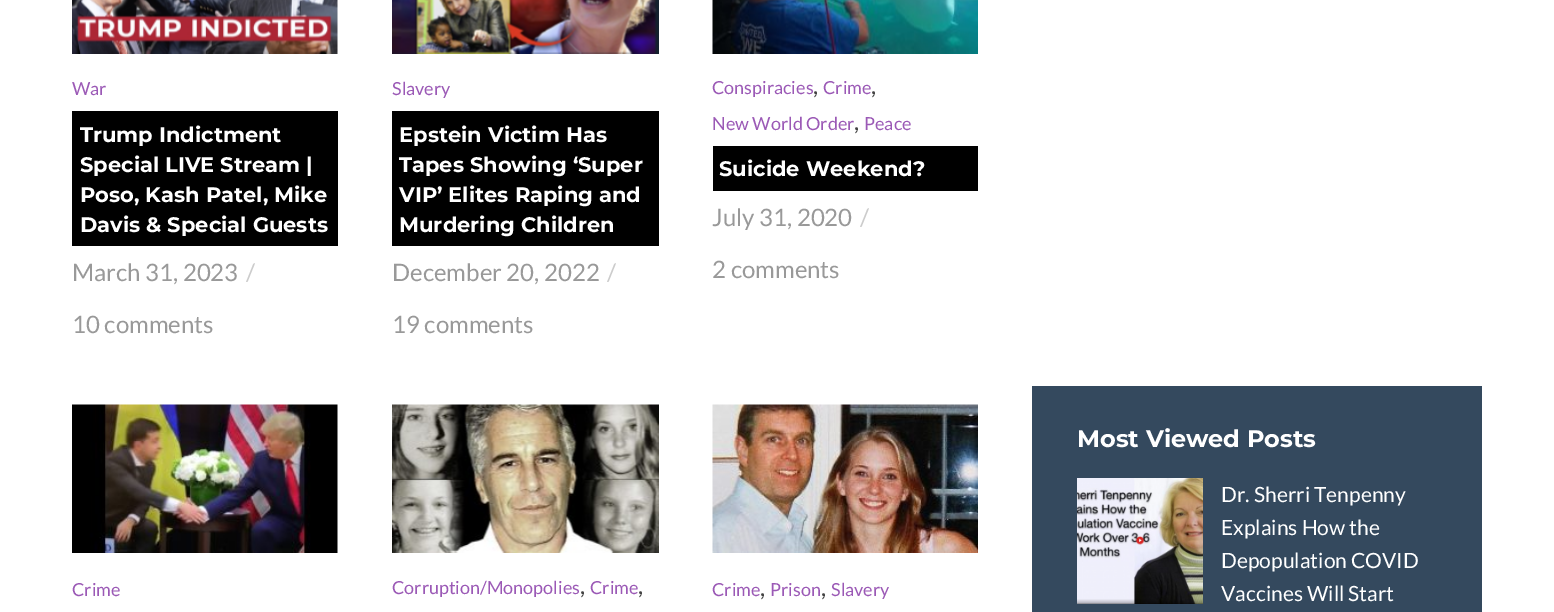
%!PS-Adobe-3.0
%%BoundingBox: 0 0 1554 612
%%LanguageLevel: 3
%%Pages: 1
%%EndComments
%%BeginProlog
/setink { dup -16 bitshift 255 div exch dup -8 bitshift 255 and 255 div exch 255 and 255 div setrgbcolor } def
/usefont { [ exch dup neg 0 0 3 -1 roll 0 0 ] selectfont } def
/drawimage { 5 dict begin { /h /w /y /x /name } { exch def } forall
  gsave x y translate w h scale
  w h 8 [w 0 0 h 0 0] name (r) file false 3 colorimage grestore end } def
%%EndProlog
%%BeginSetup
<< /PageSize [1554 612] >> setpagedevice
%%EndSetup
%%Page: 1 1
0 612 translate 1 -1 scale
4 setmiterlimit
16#FFFFFF setink
0 0 1554 612 rectfill
(img1.raw) 72 0 266 54 drawimage
/Lato-Regular 18 usefont
16#9B59B6 setink
72 95 moveto (War) show
16#000000 setink
72 111 266 135 rectfill
/Montserrat-Bold 21 usefont
16#FFFFFF setink
[
    [(Trump Indictment) 80 142]
    [(Special LIVE Stream |) 80 172]
    [(Poso, Kash Patel, Mike) 80 202]
    [(Davis & Special Guests) 80 232]
] { aload pop moveto show } forall
/Lato-Regular 24 usefont
16#999999 setink
72 281 moveto (March 31, 2023) show
16#CCCCCC setink
246 281 moveto (/) show
16#999999 setink
72 333 moveto (10 comments) show
(img2.raw) 392 0 267 54 drawimage
/Lato-Regular 18 usefont
16#9B59B6 setink
392 95 moveto (Slavery) show
16#000000 setink
392 111 267 135 rectfill
/Montserrat-Bold 21 usefont
16#FFFFFF setink
[
    [(Epstein Victim Has) 399 142]
    [(Tapes Showing ‘Super) 399 172]
    [(VIP’ Elites Raping and) 399 202]
    [(Murdering Children) 399 232]
] { aload pop moveto show } forall
/Lato-Regular 24 usefont
16#999999 setink
392 281 moveto (December 20, 2022) show
16#CCCCCC setink
607 281 moveto (/) show
16#999999 setink
392 333 moveto (19 comments) show
(img3.raw) 712 0 266 54 drawimage
/Lato-Regular 18 usefont
16#9B59B6 setink
712 94 moveto (Conspiracies) show
/Lato-Regular 24 usefont
16#424242 setink
813 94 moveto (,) show
/Lato-Regular 18 usefont
16#9B59B6 setink
823 94 moveto (Crime) show
/Lato-Regular 24 usefont
16#424242 setink
871 94 moveto (,) show
/Lato-Regular 18 usefont
16#9B59B6 setink
712 130 moveto (New World Order) show
/Lato-Regular 24 usefont
16#424242 setink
854 130 moveto (,) show
/Lato-Regular 18 usefont
16#9B59B6 setink
864 130 moveto (Peace) show
16#000000 setink
713 146 265 45 rectfill
/Montserrat-Bold 21 usefont
16#FFFFFF setink
719 176 moveto (Suicide Weekend?) show
/Lato-Regular 24 usefont
16#999999 setink
712 226 moveto (July 31, 2020) show
16#CCCCCC setink
860 226 moveto (/) show
16#999999 setink
712 278 moveto (2 comments) show
(img4.raw) 72 404 266 149 drawimage
/Lato-Regular 18 usefont
16#9B59B6 setink
72 596 moveto (Crime) show
(img5.raw) 392 404 267 149 drawimage
392 594 moveto (Corruption/Monopolies) show
/Lato-Regular 24 usefont
16#424242 setink
580 594 moveto (,) show
/Lato-Regular 18 usefont
16#9B59B6 setink
590 594 moveto (Crime) show
/Lato-Regular 24 usefont
16#424242 setink
638 594 moveto (,) show
(img6.raw) 712 404 266 149 drawimage
/Lato-Regular 18 usefont
16#9B59B6 setink
712 596 moveto (Crime) show
/Lato-Regular 24 usefont
16#424242 setink
760 596 moveto (,) show
/Lato-Regular 18 usefont
16#9B59B6 setink
770 596 moveto (Prison) show
/Lato-Regular 24 usefont
16#424242 setink
821 596 moveto (,) show
/Lato-Regular 18 usefont
16#9B59B6 setink
831 596 moveto (Slavery) show
16#34495E setink
1032 386 450 226 rectfill
/Montserrat-Bold 24 usefont
16#FFFFFF setink
1077 447 moveto (Most Viewed Posts) show
(img7.raw) 1077 478 126 126 drawimage
/Lato-Regular 21 usefont
[
    [(Dr. Sherri Tenpenny) 1221 502]
    [(Explains How the) 1221 535]
    [(Depopulation COVID) 1221 568]
    [(Vaccines Will Start) 1221 601]
] { aload pop moveto show } forall
showpage
%%EOF
